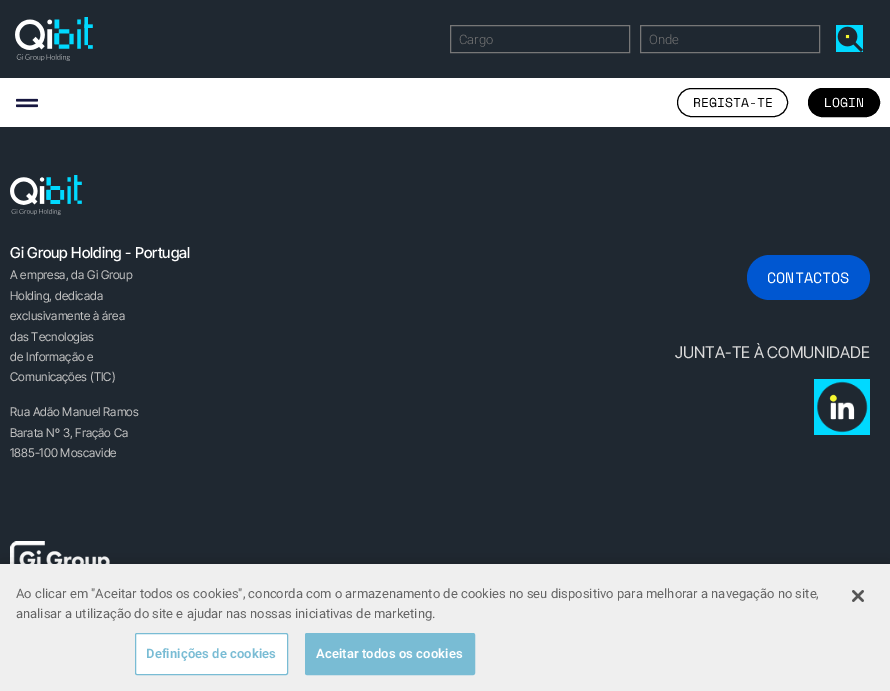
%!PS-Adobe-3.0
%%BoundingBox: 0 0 890 691
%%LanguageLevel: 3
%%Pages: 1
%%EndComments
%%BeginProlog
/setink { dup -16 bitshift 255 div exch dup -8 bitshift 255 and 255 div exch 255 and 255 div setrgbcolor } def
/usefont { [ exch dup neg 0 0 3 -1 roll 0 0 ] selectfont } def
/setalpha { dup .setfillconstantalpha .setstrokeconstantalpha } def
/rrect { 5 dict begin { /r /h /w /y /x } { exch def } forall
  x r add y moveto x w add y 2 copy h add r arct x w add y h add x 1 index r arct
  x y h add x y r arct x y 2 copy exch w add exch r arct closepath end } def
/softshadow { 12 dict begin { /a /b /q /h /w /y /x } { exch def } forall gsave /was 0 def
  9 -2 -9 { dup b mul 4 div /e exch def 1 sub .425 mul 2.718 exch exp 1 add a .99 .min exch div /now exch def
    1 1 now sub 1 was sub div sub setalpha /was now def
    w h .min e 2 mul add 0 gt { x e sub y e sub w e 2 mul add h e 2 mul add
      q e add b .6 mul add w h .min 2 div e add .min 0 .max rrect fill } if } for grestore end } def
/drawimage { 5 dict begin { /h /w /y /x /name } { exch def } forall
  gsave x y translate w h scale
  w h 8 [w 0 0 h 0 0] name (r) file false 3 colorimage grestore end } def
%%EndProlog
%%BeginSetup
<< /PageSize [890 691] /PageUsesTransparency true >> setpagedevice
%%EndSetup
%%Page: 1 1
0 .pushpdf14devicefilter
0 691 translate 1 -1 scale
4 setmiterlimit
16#1F2831 setink
0 0 890 691 rectfill
(img1.raw) 15 17 78 44 drawimage
16#777777 setink
450.5 25.5 179 27 rectstroke
/Roboto-Light 13 usefont
16#757575 setink
459 44 moveto (Cargo) show
16#777777 setink
640.5 25.5 179 27 rectstroke
16#757575 setink
649 44 moveto (Onde) show
(img2.raw) 836 25 27 27 drawimage
16#FFFFFF setink
0 78 890 49 rectfill
(img3.raw) 16 98 22 10 drawimage
16#000000 setink
677.5 88.5 110 28 14 rrect stroke
/SpaceMono-Regular 13 usefont
693 107 moveto (REGISTA-TE) show
808.5 88.5 71 28 14 rrect gsave fill grestore
stroke
16#FFFFFF setink
824 107 moveto (LOGIN) show
(img4.raw) 10 175 72 40 drawimage
/InterTight-Medium 15 usefont
10 258 moveto (Gi Group Holding - Portugal) show
/InterTight-Regular 12 usefont
16#C2C2C2 setink
[
    [(A empresa, da Gi Group) 10 279]
    [(Holding, dedicada) 10 300]
    [(exclusivamente à área) 10 320]
    [(das Tecnologias) 10 341]
    [(de Informação e) 10 361]
    [(Comunicações \(TIC\)) 10 381]
    [(Rua Adão Manuel Ramos) 10 416]
    [(Barata Nº 3, Fração Ca) 10 437]
    [(1885-100 Moscavide) 10 457]
] { aload pop moveto show } forall
16#0057D1 setink
747 255 123 45 22.5 rrect fill
/SpaceMono-Regular 15 usefont
16#FFFFFF setink
767 283 moveto (CONTACTOS) show
/InterTight-Regular 16 usefont
16#DADADA setink
675 358 moveto (JUNTA-TE À COMUNIDADE) show
(img5.raw) 814 379 56 56 drawimage
(img6.raw) 10 541 100 23 drawimage
16#000000 setink
0 564 890 127 0 9 0.2 softshadow
16#EFEFEF setink
0 564 890 127 rectfill
/Roboto-Regular 13 usefont
16#666666 setink
16 598 moveto (Ao clicar em "Aceitar todos os cookies", concorda com o armazenamento de cookies no seu dispositivo para melhorar a navegação no site,) show
16 618 moveto (analisar a utilização do site e ajudar nas nossas iniciativas de marketing.) show
16#FFFFFF setink
135.5 633.5 152 41 1.5 rrect gsave fill grestore
16#79BCD4 setink
stroke
/Roboto-SemiBold 13 usefont
146 658 moveto 0.1 0 (Definições de cookies) ashow
305.5 633.5 169 41 1.5 rrect gsave fill grestore
stroke
16#FFFFFF setink
316 658 moveto 0.1 0 (Aceitar todos os cookies) ashow
(img7.raw) 852 590 12 12 drawimage
.poppdf14devicefilter showpage
%%EOF
